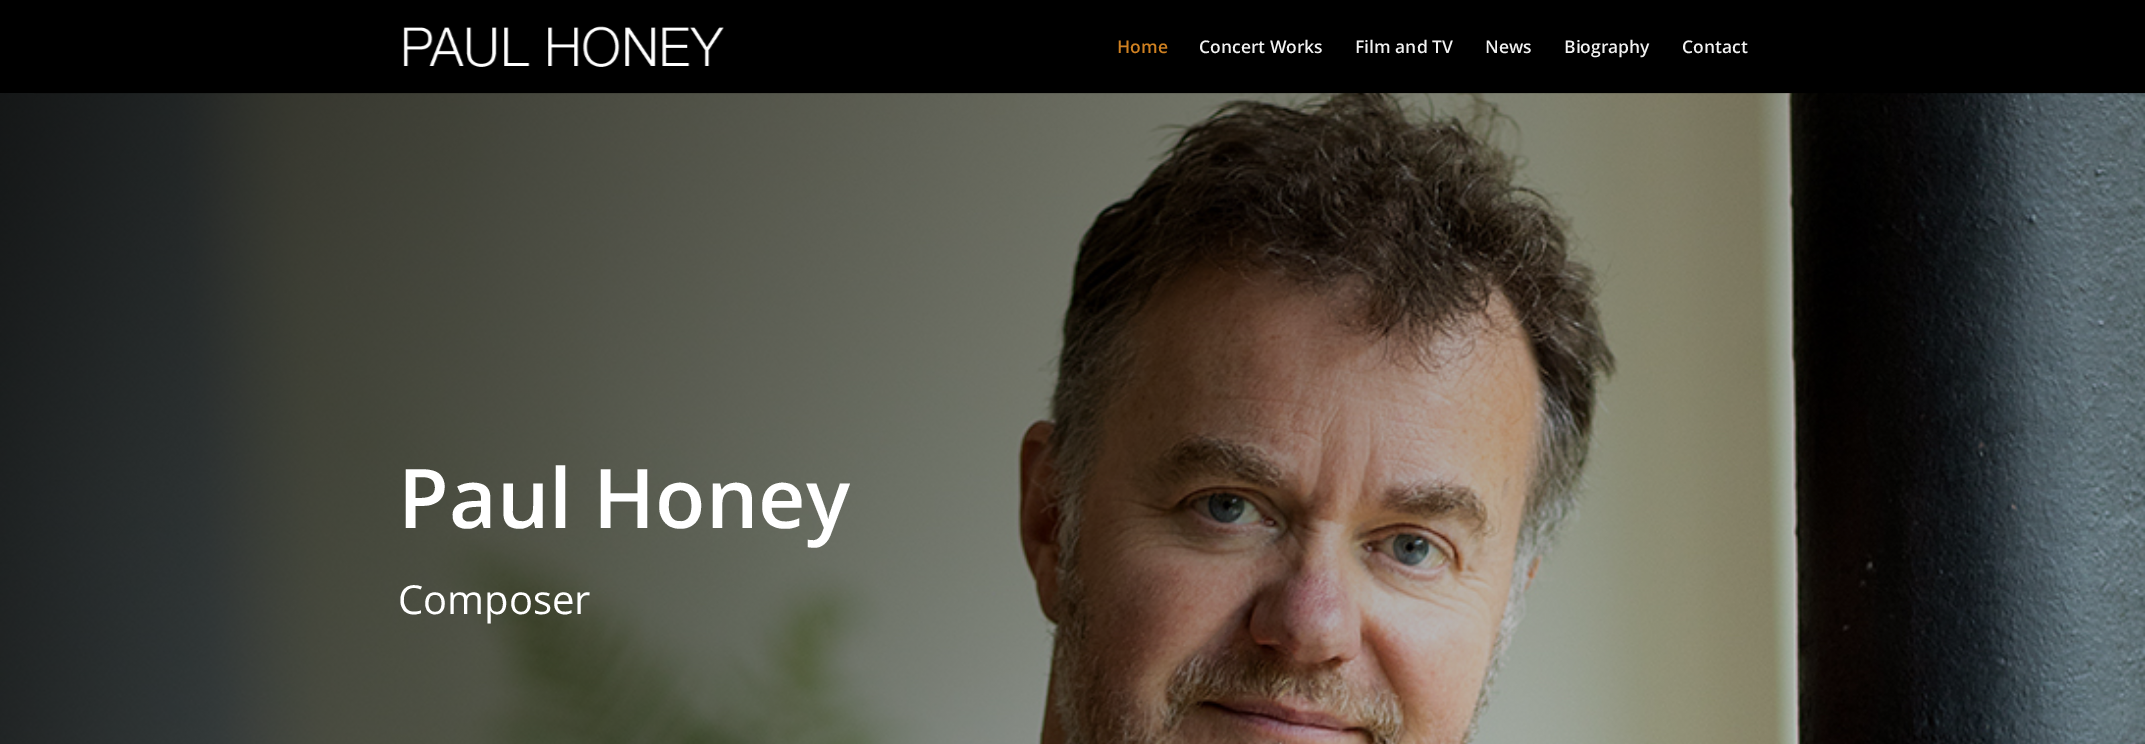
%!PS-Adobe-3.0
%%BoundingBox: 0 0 2145 744
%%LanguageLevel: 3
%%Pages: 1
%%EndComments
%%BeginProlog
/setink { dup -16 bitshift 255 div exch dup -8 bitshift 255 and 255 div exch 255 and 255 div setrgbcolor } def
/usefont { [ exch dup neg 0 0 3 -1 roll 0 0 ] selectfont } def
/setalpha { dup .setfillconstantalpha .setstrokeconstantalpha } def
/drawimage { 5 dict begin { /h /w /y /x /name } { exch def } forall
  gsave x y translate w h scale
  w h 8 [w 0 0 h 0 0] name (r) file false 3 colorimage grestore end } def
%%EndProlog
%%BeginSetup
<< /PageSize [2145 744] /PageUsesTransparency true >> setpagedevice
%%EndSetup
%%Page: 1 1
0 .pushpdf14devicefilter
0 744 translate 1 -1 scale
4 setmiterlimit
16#FFFFFF setink
0 0 2145 744 rectfill
(img2.raw) 0 93 2145 651 drawimage
0.1 setalpha
16#000000 setink
34 93 2111 1 rectfill
1 setalpha
0 0 2145 93 rectfill
(img1.raw) 403 26 321 41 drawimage
/OpenSans-SemiBold 17.5 usefont
16#D08121 setink
1117 53 moveto (Home) show
16#F2F2F2 setink
[
    [(Concert Works) 1199 53]
    [(Film and TV) 1355 53]
    [(News) 1485 53]
    [(Biography) 1564 53]
    [(Contact) 1682 53]
] { aload pop moveto show } forall
/OpenSans-SemiBold 82.5 usefont
16#FFFFFF setink
398 528 moveto (Paul Honey) show
/OpenSans-Regular 40 usefont
398 614 moveto (Composer) show
.poppdf14devicefilter showpage
%%EOF
